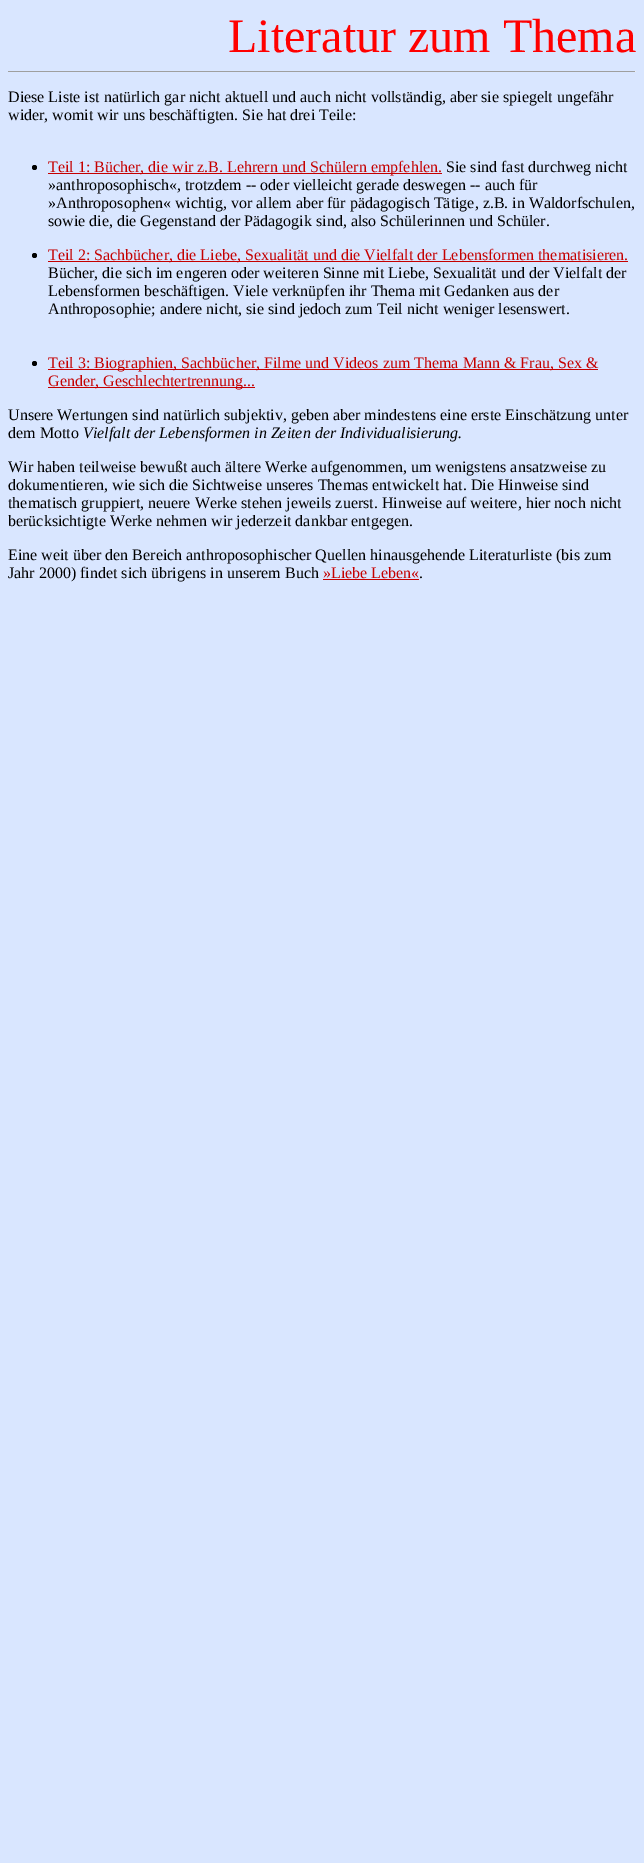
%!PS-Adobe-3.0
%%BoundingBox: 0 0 644 1863
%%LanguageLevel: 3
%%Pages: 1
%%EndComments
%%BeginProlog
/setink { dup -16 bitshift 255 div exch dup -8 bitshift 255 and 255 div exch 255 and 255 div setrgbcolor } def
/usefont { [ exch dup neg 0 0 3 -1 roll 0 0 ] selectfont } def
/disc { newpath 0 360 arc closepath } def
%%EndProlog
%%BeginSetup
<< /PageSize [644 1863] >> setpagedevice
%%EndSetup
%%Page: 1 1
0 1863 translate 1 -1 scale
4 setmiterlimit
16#D9E6FF setink
0 0 644 1863 rectfill
/LiberationSerif-Regular 48 usefont
16#FF0000 setink
228 52 moveto (Literatur zum Thema) show
16#9F9F9F setink
8 71 628 1 rectfill
16#EEEEEE setink
635 71 1 1 rectfill
/LiberationSerif-Regular 16 usefont
16#000000 setink
8 102 moveto (Diese Liste ist natürlich gar nicht aktuell und auch nicht vollständig, aber sie spiegelt ungefähr) show
8 120 moveto (wider, womit wir uns beschäftigten. Sie hat drei Teile:) show
34.5 167.5 2.5 disc fill
16#C50000 setink
48 173 394 1 rectfill
48 172 moveto (Teil 1: Bücher, die wir z.B. Lehrern und Schülern empfehlen.) show
16#000000 setink
[
    [(Sie sind fast durchweg nicht) 446 172]
    [(»anthroposophisch«, trotzdem -- oder vielleicht gerade deswegen -- auch für) 48 190]
    [(»Anthroposophen« wichtig, vor allem aber für pädagogisch Tätige, z.B. in Waldorfschulen,) 48 208]
    [(sowie die, die Gegenstand der Pädagogik sind, also Schülerinnen und Schüler.) 48 226]
] { aload pop moveto show } forall
34.5 255.5 2.5 disc fill
16#C50000 setink
48 261 580 1 rectfill
48 260 moveto (Teil 2: Sachbücher, die Liebe, Sexualität und die Vielfalt der Lebensformen thematisieren.) show
16#000000 setink
[
    [(Bücher, die sich im engeren oder weiteren Sinne mit Liebe, Sexualität und der Vielfalt der) 48 278]
    [(Lebensformen beschäftigen. Viele verknüpfen ihr Thema mit Gedanken aus der) 48 296]
    [(Anthroposophie; andere nicht, sie sind jedoch zum Teil nicht weniger lesenswert.) 48 314]
] { aload pop moveto show } forall
34.5 363.5 2.5 disc fill
16#C50000 setink
48 369 550 1 rectfill
48 368 moveto (Teil 3: Biographien, Sachbücher, Filme und Videos zum Thema Mann & Frau, Sex &) show
48 387 207 1 rectfill
48 386 moveto (Gender, Geschlechtertrennung...) show
16#000000 setink
8 420 moveto (Unsere Wertungen sind natürlich subjektiv, geben aber mindestens eine erste Einschätzung unter) show
8 438 moveto (dem Motto) show
/LiberationSerif-Italic 16 usefont
83 438 moveto (Vielfalt der Lebensformen in Zeiten der Individualisierung.) show
/LiberationSerif-Regular 16 usefont
[
    [(Wir haben teilweise bewußt auch ältere Werke aufgenommen, um wenigstens ansatzweise zu) 8 472]
    [(dokumentieren, wie sich die Sichtweise unseres Themas entwickelt hat. Die Hinweise sind) 8 490]
    [(thematisch gruppiert, neuere Werke stehen jeweils zuerst. Hinweise auf weitere, hier noch nicht) 8 508]
    [(berücksichtigte Werke nehmen wir jederzeit dankbar entgegen.) 8 526]
    [(Eine weit über den Bereich anthroposophischer Quellen hinausgehende Literaturliste \(bis zum) 8 560]
    [(Jahr 2000\) findet sich übrigens in unserem Buch) 8 578]
] { aload pop moveto show } forall
16#C50000 setink
323 578 moveto (»Liebe Leben«) show
16#000000 setink
419 578 moveto (.) show
16#C50000 setink
323 579 96 1 rectfill
showpage
%%EOF
